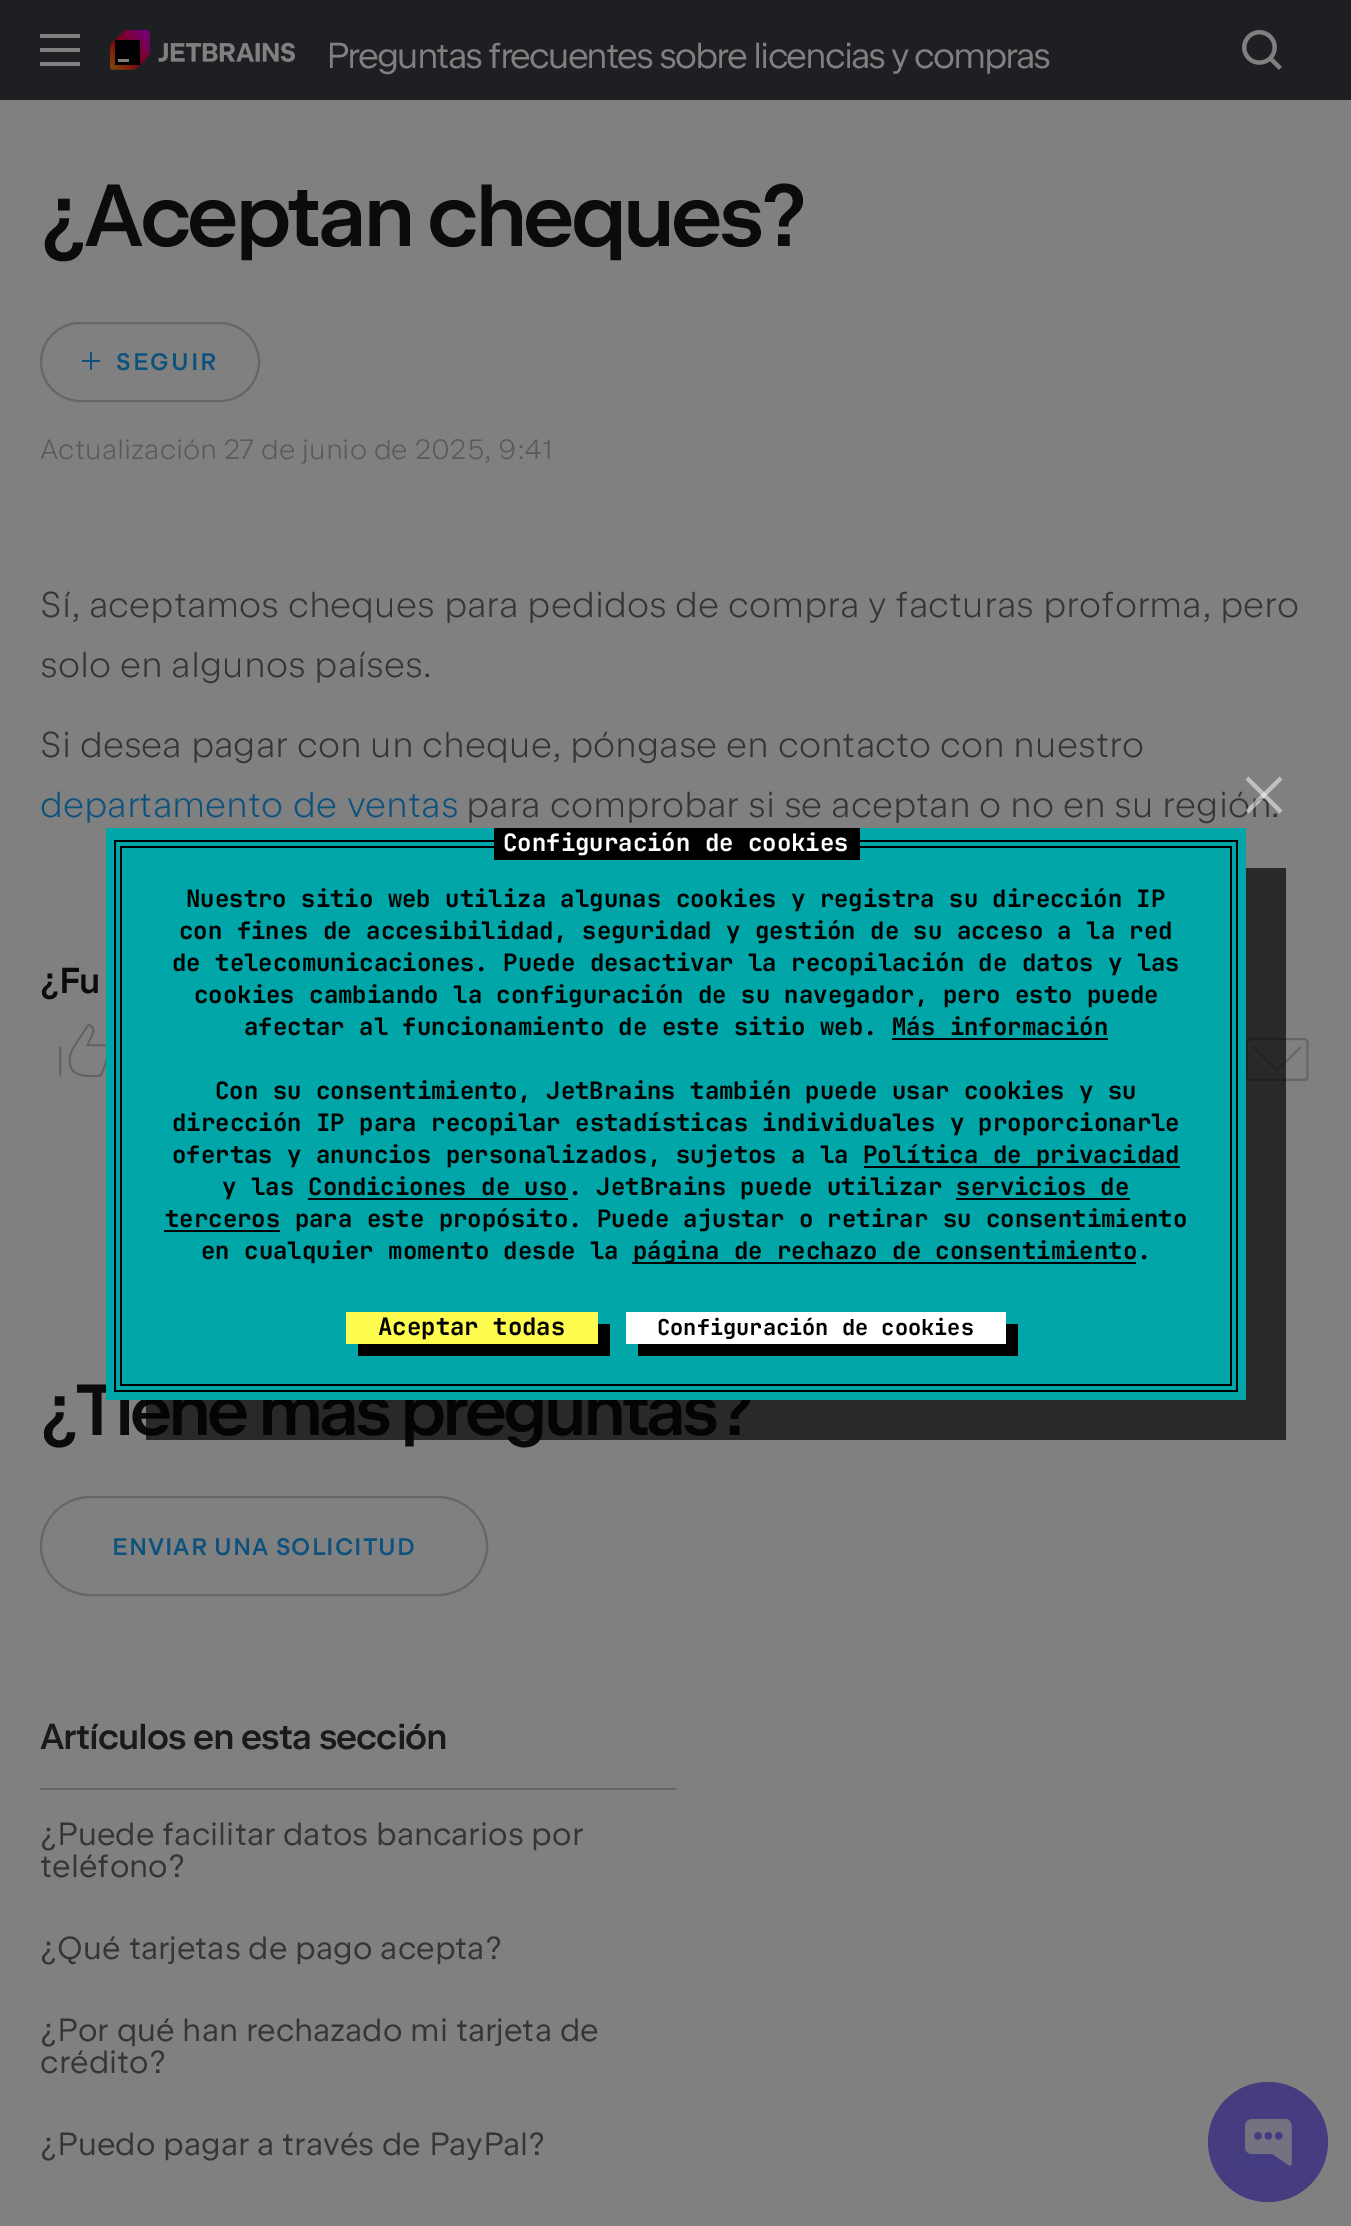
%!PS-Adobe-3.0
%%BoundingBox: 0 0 1351 2226
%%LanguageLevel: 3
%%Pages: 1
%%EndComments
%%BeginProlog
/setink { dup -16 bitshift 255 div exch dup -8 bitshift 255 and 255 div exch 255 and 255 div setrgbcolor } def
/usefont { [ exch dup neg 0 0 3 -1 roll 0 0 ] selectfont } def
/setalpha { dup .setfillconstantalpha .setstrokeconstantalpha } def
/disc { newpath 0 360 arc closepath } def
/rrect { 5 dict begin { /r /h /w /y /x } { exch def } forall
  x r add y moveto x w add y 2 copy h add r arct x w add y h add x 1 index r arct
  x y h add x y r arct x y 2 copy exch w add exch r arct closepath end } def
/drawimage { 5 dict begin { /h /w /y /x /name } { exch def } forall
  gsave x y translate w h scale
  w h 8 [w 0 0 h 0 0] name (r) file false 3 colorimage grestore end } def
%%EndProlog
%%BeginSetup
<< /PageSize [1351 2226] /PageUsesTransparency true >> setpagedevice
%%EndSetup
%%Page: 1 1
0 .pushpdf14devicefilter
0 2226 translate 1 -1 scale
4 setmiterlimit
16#808080 setink
0 0 1351 2226 rectfill
[
    [0 0 1351 100 16#1E1F22]
    [40 48 40 4 16#808080]
    [40 34 40 4 16#808080]
    [40 62 40 4 16#808080]
] { aload pop setink rectfill } forall
(img1.raw) 110 30 185 40 drawimage
/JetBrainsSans-Regular 36 usefont
326 68 moveto -2 0 (Preguntas frecuentes sobre licencias y compras) ashow
(img2.raw) 1242 30 40 40 drawimage
/JetBrainsSans-SemiBold 88 usefont
16#0B0B0B setink
40 246 moveto -4 0 (¿Aceptan cheques?) ashow
16#666666 setink
2 setlinewidth
41 323 218 78 39 rrect stroke
(img3.raw) 82 352 18 18 drawimage
/JetBrainsSans-SemiBold 24 usefont
16#0C527D setink
116 370 moveto 2 0 (SEGUIR) ashow
/JetBrainsSans-Light 28 usefont
16#58595A setink
40 459 moveto (Actualización 27 de junio de 2025, 9:41) show
/JetBrainsSans-Light 36 usefont
16#353535 setink
[
    [(Sí, aceptamos cheques para pedidos de compra y facturas proforma, pero) 40 617]
    [(solo en algunos países.) 40 677]
    [(Si desea pagar con un cheque, póngase en contacto con nuestro) 40 757]
] { aload pop moveto show } forall
16#0C527D setink
40 817 moveto 1 0 32 (departamento de ventas) widthshow
16#353535 setink
466 817 moveto (para comprobar si se aceptan o no en su región.) show
/JetBrainsSans-SemiBold 36 usefont
16#0B0B0B setink
40 993 moveto 1 0 32 -1 0 (¿Fu) awidthshow
(img4.raw) 59 1023 47 55 drawimage
(img5.raw) 1246 1038 63 44 drawimage
/JetBrainsSans-SemiBold 72 usefont
40 1435 moveto -4 0 (¿Tiene más preguntas?) ashow
16#666666 setink
41 1497 446 98 49 rrect stroke
/JetBrainsSans-SemiBold 24 usefont
16#0C527D setink
112 1555 moveto 1 0 (ENVIAR UNA SOLICITUD) ashow
16#666666 setink
40 1788 636 2 rectfill
/JetBrainsSans-SemiBold 36 usefont
16#1A1A1A setink
40 1749 moveto 0.5 0 32 -1 0 (Artículos en esta sección) awidthshow
/JetBrainsSans-Regular 32 usefont
16#353535 setink
[
    [(¿Puede facilitar datos bancarios por) 40 1845]
    [(teléfono?) 40 1877]
    [(¿Qué tarjetas de pago acepta?) 40 1959]
    [(¿Por qué han rechazado mi tarjeta de) 40 2041]
    [(crédito?) 40 2073]
    [(¿Puedo pagar a través de PayPal?) 40 2155]
] { aload pop moveto show } forall
0.68 setalpha
16#000000 setink
146 1400 moveto 146 1440 lineto 1286 1440 lineto 1286 868 lineto 1246 868 lineto 1246 1400 lineto closepath fill
1 setalpha
16#01A7A8 setink
106 828 1140 572 rectfill
0.5 setalpha
16#FFFFFF setink
1245.5 810.5 moveto 1279.5 776.5 lineto 1282.5 779.5 lineto 1248.5 813.5 lineto closepath fill
1248.5 776.5 moveto 1282.5 810.5 lineto 1279.5 813.5 lineto 1245.5 779.5 lineto closepath fill
1 setalpha
[
    [120 846 1112 2 16#000000]
    [1230 846 2 540 16#000000]
    [120 846 2 466 16#000000]
    [114 840 1124 2 16#000000]
    [494 828 366 32 16#000000]
] { aload pop setink rectfill } forall
/JetBrainsMono-Bold 24 usefont
16#FFFFFF setink
503 851 moveto (Configuración de cookies) show
16#000000 setink
1236 840 2 552 rectfill
114 840 2 470 rectfill
[
    [(Nuestro sitio web utiliza algunas cookies y registra su dirección IP) 186 907]
    [(con fines de accesibilidad, seguridad y gestión de su acceso a la red) 179 939]
    [(de telecomunicaciones. Puede desactivar la recopilación de datos y las) 172 971]
    [(cookies cambiando la configuración de su navegador, pero esto puede) 194 1003]
    [(afectar al funcionamiento de este sitio web. Más información) 244 1035]
] { aload pop moveto show } forall
892 1038 216 2 rectfill
[
    [(Con su consentimiento, JetBrains también puede usar cookies y su) 215 1099]
    [(dirección IP para recopilar estadísticas individuales y proporcionarle) 172 1131]
    [(ofertas y anuncios personalizados, sujetos a la) 172 1163]
] { aload pop moveto show } forall
864 1166 316 2 rectfill
863 1163 moveto (Política de privacidad) show
222 1195 moveto (y las Condiciones de uso. JetBrains puede utilizar servicios de) show
308 1198 260 2 rectfill
164 1230 116 2 rectfill
165 1227 moveto (terceros para este propósito. Puede ajustar o retirar su consentimiento) show
956 1198 174 2 rectfill
201 1259 moveto (en cualquier momento desde la) show
632 1262 504 2 rectfill
633 1259 moveto (página de rechazo de consentimiento.) show
[
    [120 1384 1112 2 16#000000]
    [120 1312 2 74 16#000000]
    [114 1390 1124 2 16#000000]
    [114 1310 2 82 16#000000]
] { aload pop setink rectfill } forall
358 1344 moveto 358 1356 lineto 610 1356 lineto 610 1324 lineto 598 1324 lineto 598 1344 lineto closepath fill
16#FEFC4F setink
346 1312 252 32 rectfill
16#000000 setink
378 1335 moveto (Aceptar todas) show
638 1344 moveto 638 1356 lineto 1018 1356 lineto 1018 1324 lineto 1006 1324 lineto 1006 1344 lineto closepath fill
16#FFFFFF setink
626 1312 380 32 rectfill
/JetBrainsMono-Bold 22 usefont
16#000000 setink
657 1335 moveto (Configuración de cookies) show
16#453D80 setink
1268 2142 60 disc fill
(img6.raw) 1245 2119 47 47 drawimage
.poppdf14devicefilter showpage
%%EOF
